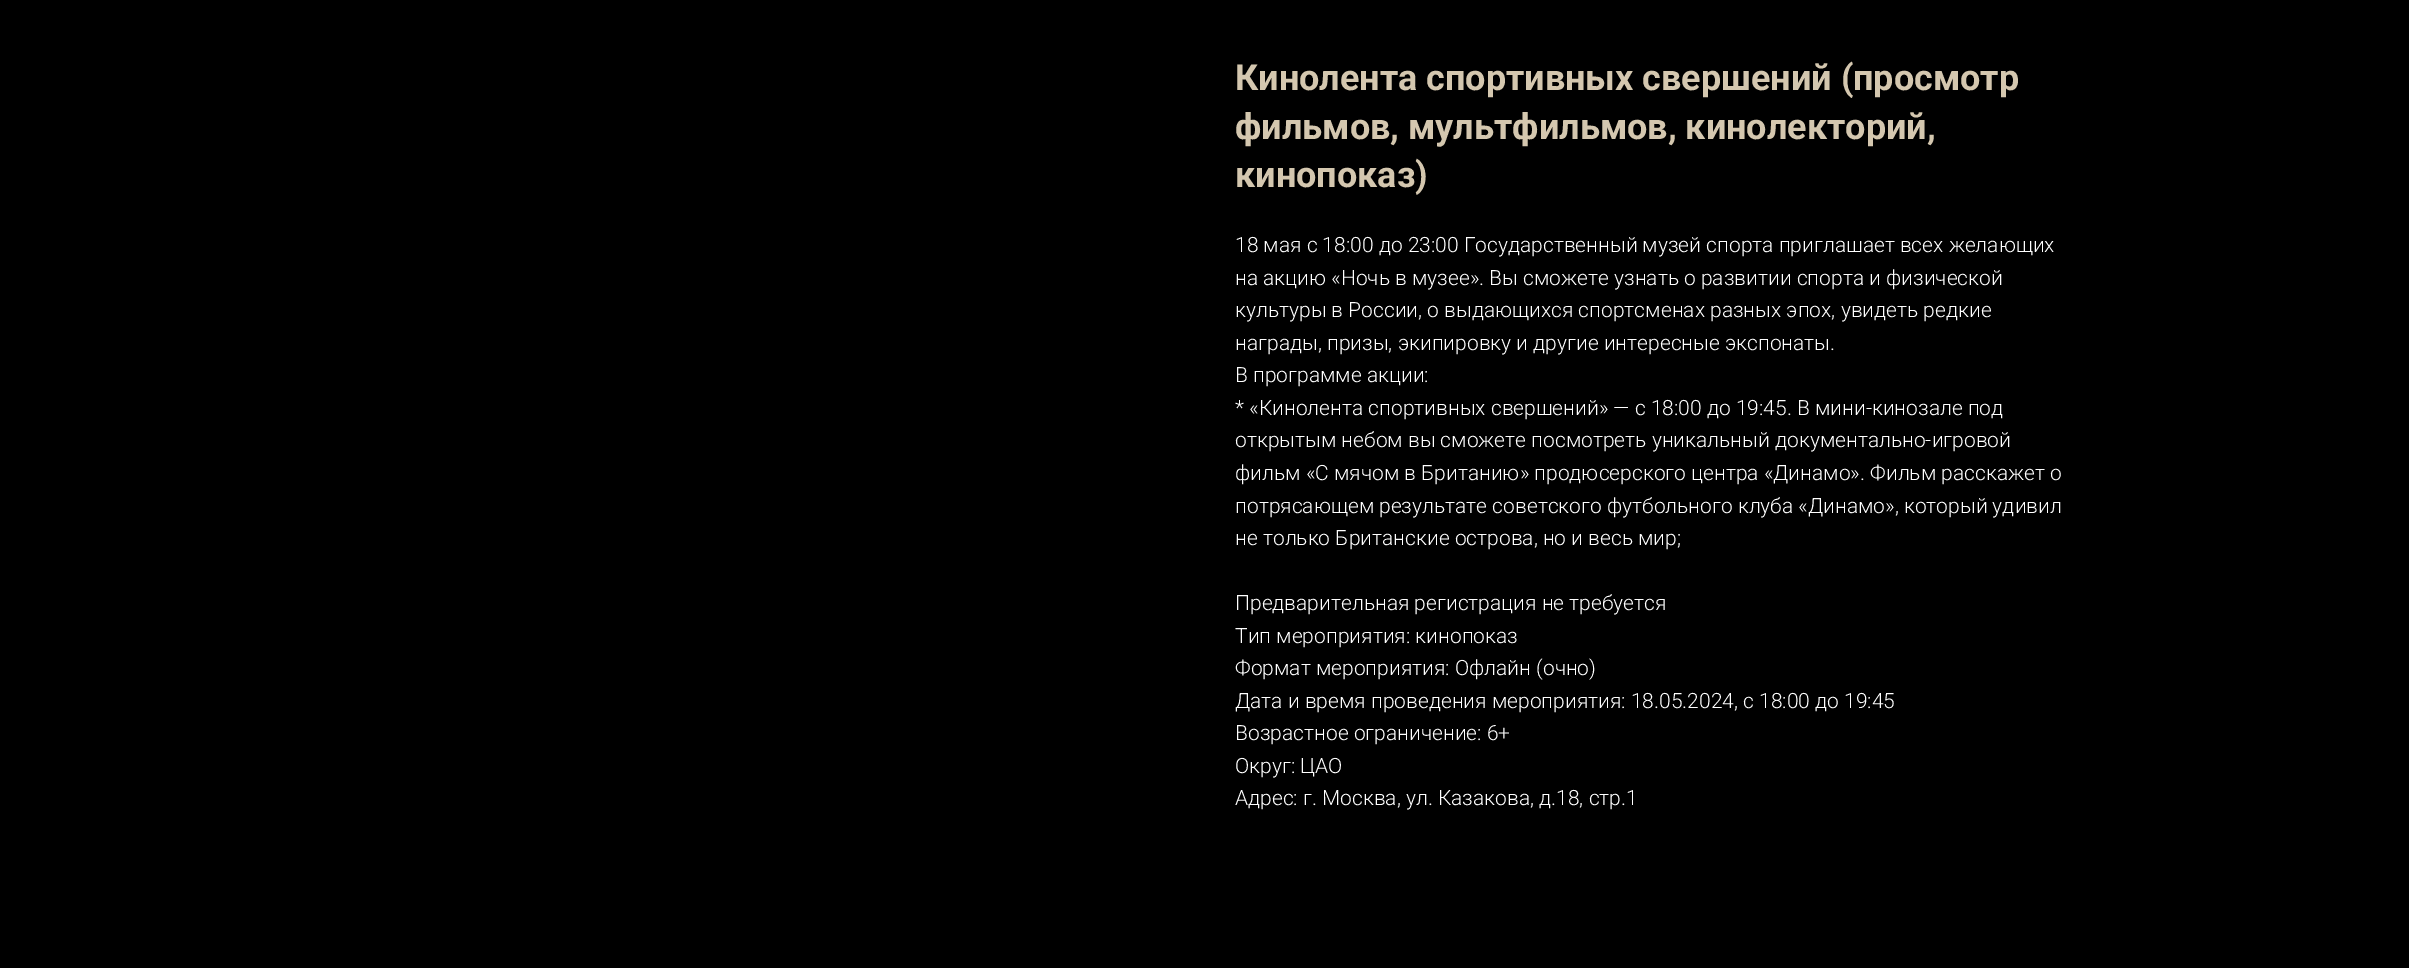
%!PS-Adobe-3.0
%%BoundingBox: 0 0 2409 968
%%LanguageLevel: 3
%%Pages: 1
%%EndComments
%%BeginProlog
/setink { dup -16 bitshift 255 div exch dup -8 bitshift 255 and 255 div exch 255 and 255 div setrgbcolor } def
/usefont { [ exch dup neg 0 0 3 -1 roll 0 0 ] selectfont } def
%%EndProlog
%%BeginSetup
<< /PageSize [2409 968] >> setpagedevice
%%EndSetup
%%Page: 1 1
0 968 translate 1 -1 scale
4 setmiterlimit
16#000000 setink
0 0 2409 968 rectfill
/Roboto-Bold 36 usefont
16#D4C7AF setink
[
    [(Кинолента спортивных свершений \(просмотр) 1235 90]
    [(фильмов, мультфильмов, кинолекторий,) 1235 139]
    [(кинопоказ\)) 1235 187]
] { aload pop moveto show } forall
/Roboto-Light 21 usefont
16#FFFFFF setink
[
    [(18 мая с 18:00 до 23:00 Государственный музей спорта приглашает всех желающих) 1235 252]
    [(на акцию «Ночь в музее». Вы сможете узнать о развитии спорта и физической) 1235 285]
    [(культуры в России, о выдающихся спортсменах разных эпох, увидеть редкие) 1235 317]
    [(награды, призы, экипировку и другие интересные экспонаты.) 1235 350]
    [(В программе акции:) 1235 382]
    [(* «Кинолента спортивных свершений» — с 18:00 до 19:45. В мини-кинозале под) 1235 415]
    [(открытым небом вы сможете посмотреть уникальный документально-игровой) 1235 447]
    [(фильм «С мячом в Британию» продюсерского центра «Динамо». Фильм расскажет о) 1235 480]
    [(потрясающем результате советского футбольного клуба «Динамо», который удивил) 1235 513]
    [(не только Британские острова, но и весь мир;) 1235 545]
    [(Предварительная регистрация не требуется) 1235 610]
    [(Тип мероприятия: кинопоказ) 1235 643]
    [(Формат мероприятия: Офлайн \(очно\)) 1235 675]
    [(Дата и время проведения мероприятия: 18.05.2024, с 18:00 до 19:45) 1235 708]
    [(Возрастное ограничение: 6+) 1235 740]
    [(Округ: ЦАО) 1235 773]
    [(Адрес: г. Москва, ул. Казакова, д.18, стр.1) 1235 805]
] { aload pop moveto show } forall
showpage
%%EOF
